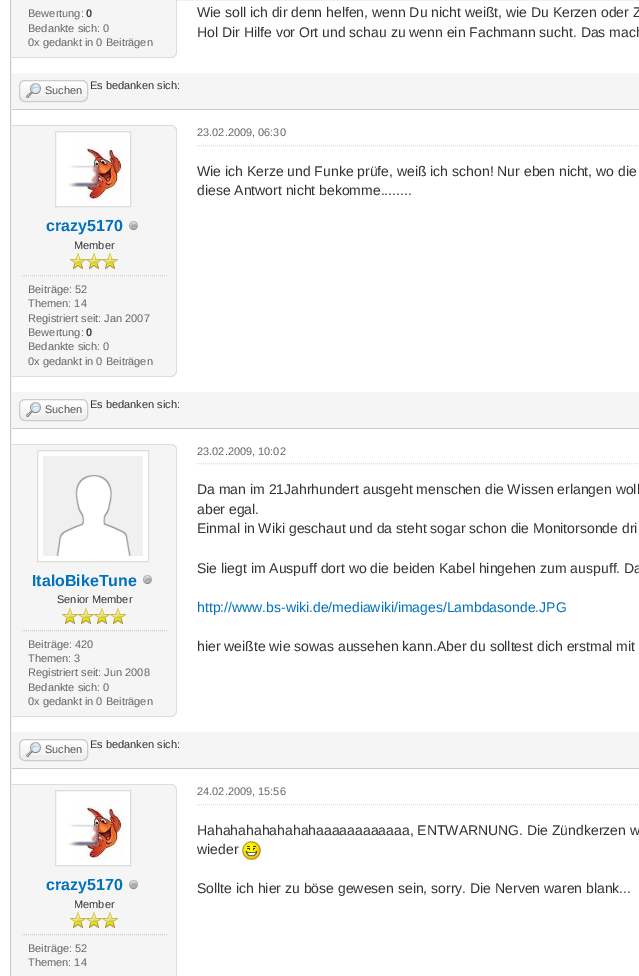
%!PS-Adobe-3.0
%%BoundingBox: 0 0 639 976
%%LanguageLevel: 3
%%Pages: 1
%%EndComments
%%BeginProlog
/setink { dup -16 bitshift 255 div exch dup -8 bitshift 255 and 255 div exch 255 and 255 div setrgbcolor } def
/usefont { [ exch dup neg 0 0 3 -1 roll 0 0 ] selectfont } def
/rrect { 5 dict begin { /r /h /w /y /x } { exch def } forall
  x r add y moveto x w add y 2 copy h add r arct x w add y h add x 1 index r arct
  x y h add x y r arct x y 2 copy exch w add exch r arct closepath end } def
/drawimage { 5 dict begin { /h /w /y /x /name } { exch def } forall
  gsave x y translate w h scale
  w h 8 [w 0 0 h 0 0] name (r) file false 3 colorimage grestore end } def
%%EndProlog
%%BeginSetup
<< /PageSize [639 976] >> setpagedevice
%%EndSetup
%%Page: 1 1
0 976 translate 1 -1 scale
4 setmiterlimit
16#FFFFFF setink
0 0 639 976 rectfill
16#CCCCCC setink
10.5 -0.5 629 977 rectstroke
16#F5F5F5 setink
12 -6 moveto 171 -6 lineto 174.5 -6 177 -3.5 177 0 curveto 177 52 lineto 177 55.5 174.5 58 171 58 curveto 12 58 lineto closepath fill
16#DDDDDD setink
12 -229 moveto 171 -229 lineto 174 -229 177 -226 177 -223 curveto 177 52 lineto 177 55 174 58 171 58 curveto 12 58 lineto closepath 12 -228 moveto 171 -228 lineto 174 -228 176 -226 176 -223 curveto 176 52 lineto 176 55 174 57 171 57 curveto 12 57 lineto closepath eofill
/LiberationSans-Regular 11 usefont
16#666666 setink
28 17 moveto (Bewertung:) show
/LiberationSans-Bold 11 usefont
16#444444 setink
86 17 moveto (0) show
/LiberationSans-Regular 11 usefont
16#666666 setink
28 32 moveto (Bedankte sich: 0) show
28 46 moveto (0x gedankt in 0 Beiträgen) show
/LiberationSans-Regular 14 usefont
16#333333 setink
197 17 moveto (Wie soll ich dir denn helfen, wenn Du nicht weißt, wie Du Kerzen oder Z) show
197 37 moveto (Hol Dir Hilfe vor Ort und schau zu wenn ein Fachmann sucht. Das mach) show
16#F5F5F5 setink
12 73 627 36 rectfill
16#CCCCCC setink
12 109 627 1 rectfill
16#EEEEEE setink
19 80 69 22 6 rrect fill
(img1.raw) 19 81 69 15 drawimage
16#CCCCCC setink
19.5 80.5 68 21 5.5 rrect stroke
(img2.raw) 26 83 15 15 drawimage
/LiberationSans-Regular 11 usefont
16#555555 setink
45 94 moveto (Suchen) show
16#333333 setink
90 89 moveto (Es bedanken sich:) show
16#DDDDDD setink
[1 1] 0 setdash
197 145.5 moveto 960 145.5 lineto stroke
16#666666 setink
197 136 moveto (23.02.2009, 06:30) show
/LiberationSans-Regular 14 usefont
16#333333 setink
197 176 moveto (Wie ich Kerze und Funke prüfe, weiß ich schon! Nur eben nicht, wo die) show
197 195 moveto (diese Antwort nicht bekomme........) show
16#F5F5F5 setink
12 125 moveto 171 125 lineto 174.5 125 177 127.5 177 131 curveto 177 371 lineto 177 374.5 174.5 377 171 377 curveto 12 377 lineto closepath fill
16#DDDDDD setink
12 125 moveto 171 125 lineto 174 125 177 128 177 131 curveto 177 371 lineto 177 374 174 377 171 377 curveto 12 377 lineto closepath 12 126 moveto 171 126 lineto 174 126 176 128 176 131 curveto 176 371 lineto 176 374 174 376 171 376 curveto 12 376 lineto closepath eofill
16#FFFFFF setink
55.5 131.5 moveto 130.5 131.5 lineto 130.5 206.5 lineto 55.5 206.5 lineto closepath gsave fill grestore
16#DDDDDD setink
[] 0 setdash
stroke
(img3.raw) 61 137 64 64 drawimage
/LiberationSans-Bold 16 usefont
16#0072BC setink
46 231 moveto (crazy5170) show
(img4.raw) 129 221 9 9 drawimage
/LiberationSans-Regular 11 usefont
16#333333 setink
74 249 moveto (Member) show
(img5.raw) 70 253 16 16 drawimage
(img5.raw) 86 253 16 16 drawimage
(img5.raw) 102 253 16 16 drawimage
16#CCCCCC setink
[1 1] 0 setdash
22 275.5 moveto 167 275.5 lineto stroke
16#666666 setink
[
    [(Beiträge: 52) 28 293]
    [(Themen: 14) 28 307]
    [(Registriert seit: Jan 2007) 28 322]
    [(Bewertung:) 28 336]
] { aload pop moveto show } forall
/LiberationSans-Bold 11 usefont
16#444444 setink
86 336 moveto (0) show
/LiberationSans-Regular 11 usefont
16#666666 setink
28 350 moveto (Bedankte sich: 0) show
28 365 moveto (0x gedankt in 0 Beiträgen) show
16#F5F5F5 setink
12 392 627 36 rectfill
16#CCCCCC setink
12 428 627 1 rectfill
16#EEEEEE setink
19 399 69 22 6 rrect fill
(img1.raw) 19 400 69 15 drawimage
16#CCCCCC setink
[] 0 setdash
19.5 399.5 68 21 5.5 rrect stroke
(img2.raw) 26 402 15 15 drawimage
16#555555 setink
45 413 moveto (Suchen) show
16#333333 setink
90 408 moveto (Es bedanken sich:) show
16#F5F5F5 setink
12 444 moveto 171 444 lineto 174.5 444 177 446.5 177 450 curveto 177 711 lineto 177 714.5 174.5 717 171 717 curveto 12 717 lineto closepath fill
16#DDDDDD setink
12 444 moveto 171 444 lineto 174 444 177 447 177 450 curveto 177 711 lineto 177 714 174 717 171 717 curveto 12 717 lineto closepath 12 445 moveto 171 445 lineto 174 445 176 447 176 450 curveto 176 711 lineto 176 714 174 716 171 716 curveto 12 716 lineto closepath eofill
16#FFFFFF setink
37.5 450.5 moveto 148.5 450.5 lineto 148.5 561.5 lineto 37.5 561.5 lineto closepath gsave fill grestore
16#DDDDDD setink
stroke
(img6.raw) 43 456 100 100 drawimage
/LiberationSans-Bold 16 usefont
16#0072BC setink
32 586 moveto (ItaloBikeTune) show
(img4.raw) 143 575 9 9 drawimage
/LiberationSans-Regular 11 usefont
16#333333 setink
57 603 moveto (Senior Member) show
(img5.raw) 62 608 16 16 drawimage
(img5.raw) 78 608 16 16 drawimage
(img5.raw) 94 608 16 16 drawimage
(img5.raw) 110 608 16 16 drawimage
16#CCCCCC setink
[1 1] 0 setdash
22 630.5 moveto 167 630.5 lineto stroke
16#666666 setink
[
    [(Beiträge: 420) 28 648]
    [(Themen: 3) 28 662]
    [(Registriert seit: Jun 2008) 28 676]
    [(Bedankte sich: 0) 28 691]
    [(0x gedankt in 0 Beiträgen) 28 705]
] { aload pop moveto show } forall
16#DDDDDD setink
197 463.5 moveto 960 463.5 lineto stroke
16#666666 setink
197 455 moveto (23.02.2009, 10:02) show
/LiberationSans-Regular 14 usefont
16#333333 setink
[
    [(Da man im 21Jahrhundert ausgeht menschen die Wissen erlangen woll) 197 494]
    [(aber egal.) 197 514]
    [(Einmal in Wiki geschaut und da steht sogar schon die Monitorsonde dri) 197 533]
    [(Sie liegt im Auspuff dort wo die beiden Kabel hingehen zum auspuff. Da) 197 573]
] { aload pop moveto show } forall
16#0072BC setink
197 612 moveto (http://www.bs-wiki.de/mediawiki/images/Lambdasonde.JPG) show
16#333333 setink
197 651 moveto (hier weißte wie sowas aussehen kann.Aber du solltest dich erstmal mit) show
16#F5F5F5 setink
12 732 627 36 rectfill
16#CCCCCC setink
12 768 627 1 rectfill
16#EEEEEE setink
19 739 69 22 6 rrect fill
(img1.raw) 19 740 69 15 drawimage
16#CCCCCC setink
[] 0 setdash
19.5 739.5 68 21 5.5 rrect stroke
(img2.raw) 26 742 15 15 drawimage
/LiberationSans-Regular 11 usefont
16#555555 setink
45 753 moveto (Suchen) show
16#333333 setink
90 748 moveto (Es bedanken sich:) show
16#DDDDDD setink
[1 1] 0 setdash
197 804.5 moveto 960 804.5 lineto stroke
16#666666 setink
197 795 moveto (24.02.2009, 15:56) show
/LiberationSans-Regular 14 usefont
16#333333 setink
197 835 moveto (Hahahahahahahahaaaaaaaaaaaa, ENTWARNUNG. Die Zündkerzen w) show
197 854 moveto (wieder) show
(img7.raw) 242 841 19 19 drawimage
197 893 moveto (Sollte ich hier zu böse gewesen sein, sorry. Die Nerven waren blank...) show
16#F5F5F5 setink
12 784 moveto 171 784 lineto 174.5 784 177 786.5 177 790 curveto 177 976 lineto 177 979.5 174.5 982 171 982 curveto 12 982 lineto closepath fill
16#DDDDDD setink
12 784 moveto 171 784 lineto 174 784 177 787 177 790 curveto 177 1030 lineto 177 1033 174 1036 171 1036 curveto 12 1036 lineto closepath 12 785 moveto 171 785 lineto 174 785 176 787 176 790 curveto 176 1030 lineto 176 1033 174 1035 171 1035 curveto 12 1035 lineto closepath eofill
16#FFFFFF setink
55.5 790.5 moveto 130.5 790.5 lineto 130.5 865.5 lineto 55.5 865.5 lineto closepath gsave fill grestore
16#DDDDDD setink
[] 0 setdash
stroke
(img3.raw) 61 796 64 64 drawimage
/LiberationSans-Bold 16 usefont
16#0072BC setink
46 890 moveto (crazy5170) show
(img4.raw) 129 880 9 9 drawimage
/LiberationSans-Regular 11 usefont
16#333333 setink
74 908 moveto (Member) show
(img5.raw) 70 912 16 16 drawimage
(img5.raw) 86 912 16 16 drawimage
(img5.raw) 102 912 16 16 drawimage
16#CCCCCC setink
[1 1] 0 setdash
22 934.5 moveto 167 934.5 lineto stroke
16#666666 setink
28 952 moveto (Beiträge: 52) show
28 966 moveto (Themen: 14) show
showpage
%%EOF
